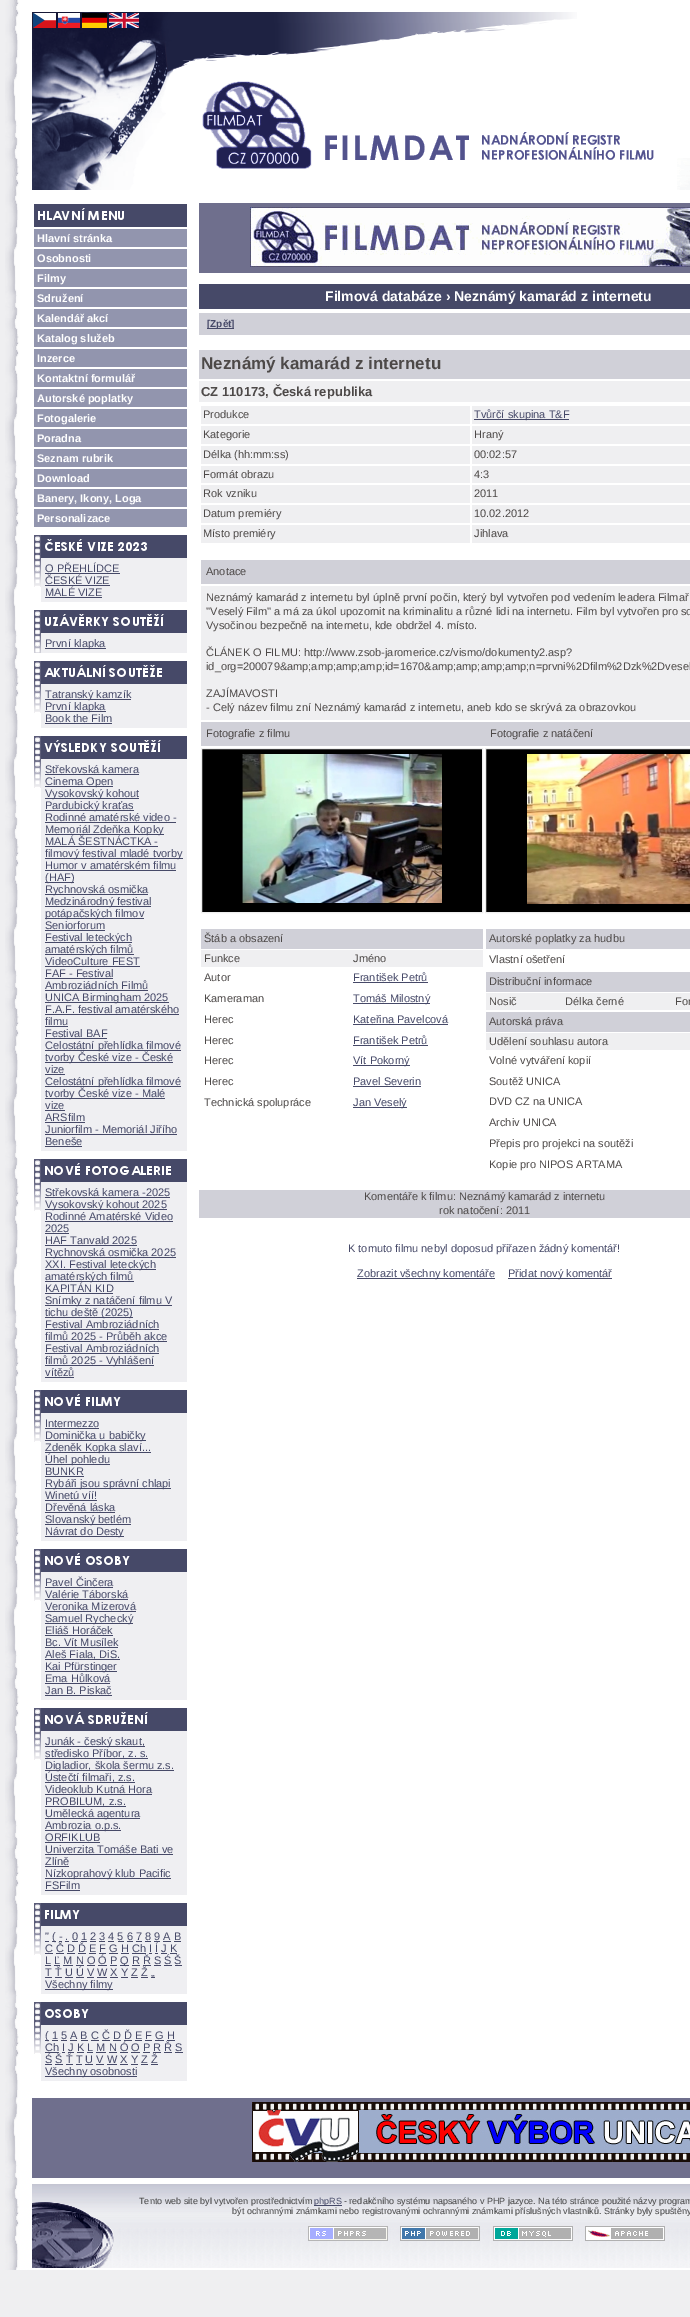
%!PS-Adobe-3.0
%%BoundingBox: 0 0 690 2317
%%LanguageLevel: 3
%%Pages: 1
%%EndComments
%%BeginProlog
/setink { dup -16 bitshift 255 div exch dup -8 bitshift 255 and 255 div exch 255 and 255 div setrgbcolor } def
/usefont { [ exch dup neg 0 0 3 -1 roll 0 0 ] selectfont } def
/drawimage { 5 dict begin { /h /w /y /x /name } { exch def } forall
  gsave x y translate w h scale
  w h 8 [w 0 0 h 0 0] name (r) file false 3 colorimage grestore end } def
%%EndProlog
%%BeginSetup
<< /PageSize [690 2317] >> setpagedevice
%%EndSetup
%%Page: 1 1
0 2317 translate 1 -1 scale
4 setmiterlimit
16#EFEFF1 setink
0 0 690 2317 rectfill
(img1.raw) 5 0 15 2270 drawimage
16#FFFFFF setink
20 0 670 2270 rectfill
(img2.raw) 32 12 545 178 drawimage
(img3.raw) 33 13 23 15 drawimage
(img4.raw) 58 13 22 15 drawimage
(img5.raw) 82 13 25 15 drawimage
(img6.raw) 109 13 30 15 drawimage
(img7.raw) 202 81 110 88 drawimage
(img8.raw) 325 132 329 28 drawimage
(img9.raw) 677 158 13 32 drawimage
16#464968 setink
34 204 153 23 rectfill
(img10.raw) 38 208 86 12 drawimage
16#9295AE setink
34 229 153 18 rectfill
/LiberationSans-Bold 11 usefont
16#FFFFFF setink
37 242 moveto (Hlavní stránka) show
16#9295AE setink
34 249 153 18 rectfill
16#FFFFFF setink
37 262 moveto (Osobnosti) show
16#9295AE setink
34 269 153 18 rectfill
16#FFFFFF setink
37 282 moveto (Filmy) show
16#9295AE setink
34 289 153 18 rectfill
16#FFFFFF setink
37 302 moveto (Sdružení) show
16#9295AE setink
34 309 153 18 rectfill
16#FFFFFF setink
37 322 moveto (Kalendář akcí) show
16#9295AE setink
34 329 153 18 rectfill
16#FFFFFF setink
37 342 moveto (Katalog služeb) show
16#9295AE setink
34 349 153 18 rectfill
16#FFFFFF setink
37 362 moveto (Inzerce) show
16#9295AE setink
34 369 153 18 rectfill
16#FFFFFF setink
37 382 moveto (Kontaktní formulář) show
16#9295AE setink
34 389 153 18 rectfill
16#FFFFFF setink
37 402 moveto (Autorské poplatky) show
16#9295AE setink
34 409 153 18 rectfill
16#FFFFFF setink
37 422 moveto (Fotogalerie) show
16#9295AE setink
34 429 153 18 rectfill
16#FFFFFF setink
37 442 moveto (Poradna) show
16#9295AE setink
34 449 153 18 rectfill
16#FFFFFF setink
37 462 moveto (Seznam rubrik) show
16#9295AE setink
34 469 153 18 rectfill
16#FFFFFF setink
37 482 moveto (Download) show
16#9295AE setink
34 489 153 18 rectfill
16#FFFFFF setink
37 502 moveto (Banery, Ikony, Loga) show
16#9295AE setink
34 509 153 18 rectfill
16#FFFFFF setink
37 522 moveto (Personalizace) show
(img11.raw) 34 535 7 52 drawimage
16#464968 setink
41 535 146 23 rectfill
(img12.raw) 45 539 102 12 drawimage
16#EFEFF2 setink
41 558 146 44 rectfill
/LiberationSans-Regular 11 usefont
16#464968 setink
45 572 moveto (O PŘEHLÍDCE) show
45 573 75 1 rectfill
45 584 moveto (ČESKÉ VIZE) show
45 585 65 1 rectfill
45 596 moveto (MALÉ VIZE) show
45 597 57 1 rectfill
(img13.raw) 34 610 7 43 drawimage
41 610 146 23 rectfill
(img14.raw) 45 614 119 12 drawimage
16#EFEFF2 setink
41 633 146 20 rectfill
16#464968 setink
45 648 61 1 rectfill
45 647 moveto (První klapka) show
(img11.raw) 34 661 7 52 drawimage
41 661 146 23 rectfill
(img15.raw) 44 665 118 12 drawimage
16#EFEFF2 setink
41 684 146 44 rectfill
16#464968 setink
45 699 86 1 rectfill
45 698 moveto (Tatranský kamzík) show
45 711 61 1 rectfill
45 710 moveto (První klapka) show
45 722 moveto (Book the Film) show
45 723 67 1 rectfill
(img11.raw) 34 736 7 52 drawimage
41 736 146 23 rectfill
(img16.raw) 44 740 117 12 drawimage
16#EFEFF2 setink
41 759 146 392 rectfill
16#464968 setink
45 773 moveto (Střekovská kamera) show
45 774 94 1 rectfill
45 786 68 1 rectfill
45 785 moveto (Cinema Open) show
45 798 94 1 rectfill
45 797 moveto (Vysokovský kohout) show
45 810 89 1 rectfill
45 809 moveto (Pardubický kraťas) show
45 821 moveto (Rodinné amatérské video -) show
45 822 131 1 rectfill
45 834 119 1 rectfill
45 833 moveto (Memoriál Zdeňka Kopky) show
45 845 moveto (MALÁ ŠESTNÁCTKA -) show
45 846 113 1 rectfill
45 858 138 1 rectfill
45 857 moveto (filmový festival mladé tvorby) show
45 869 moveto (Humor v amatérském filmu) show
45 870 131 1 rectfill
45 882 29 1 rectfill
45 881 moveto (\(HAF\)) show
45 894 103 1 rectfill
45 893 moveto (Rychnovská osmička) show
45 906 106 1 rectfill
45 905 moveto (Medzinárodný festival) show
45 918 99 1 rectfill
45 917 moveto (potápačských filmov) show
45 929 moveto (Seniorforum) show
45 930 60 1 rectfill
45 942 87 1 rectfill
45 941 moveto (Festival leteckých) show
45 954 89 1 rectfill
45 953 moveto (amatérských filmů) show
45 965 moveto (VideoCulture FEST) show
45 966 95 1 rectfill
45 977 moveto (FAF - Festival) show
45 978 68 1 rectfill
45 989 moveto (Ambroziádních Filmů) show
45 990 103 1 rectfill
45 1002 124 1 rectfill
45 1001 moveto (UNICA Birmingham 2025) show
45 1013 moveto (F.A.F. festival amatérského) show
45 1014 134 1 rectfill
45 1025 moveto (filmu) show
45 1026 23 1 rectfill
45 1037 moveto (Festival BAF) show
45 1038 62 1 rectfill
45 1050 136 1 rectfill
45 1049 moveto (Celostátní přehlídka filmové) show
45 1062 128 1 rectfill
45 1061 moveto (tvorby České vize - České) show
45 1073 moveto (vize) show
45 1074 20 1 rectfill
45 1086 136 1 rectfill
45 1085 moveto (Celostátní přehlídka filmové) show
45 1098 120 1 rectfill
45 1097 moveto (tvorby České vize - Malé) show
45 1109 moveto (vize) show
45 1110 20 1 rectfill
45 1121 moveto (ARSfilm) show
45 1122 40 1 rectfill
45 1133 moveto (Juniorfilm - Memoriál Jiřího) show
45 1134 132 1 rectfill
45 1145 moveto (Beneše) show
45 1146 37 1 rectfill
(img11.raw) 34 1159 7 52 drawimage
41 1159 146 23 rectfill
(img17.raw) 45 1163 126 12 drawimage
16#EFEFF2 setink
41 1182 146 200 rectfill
16#464968 setink
45 1196 moveto (Střekovská kamera -2025) show
45 1197 125 1 rectfill
45 1209 122 1 rectfill
45 1208 moveto (Vysokovský kohout 2025) show
45 1220 moveto (Rodinné Amatérské Video) show
45 1221 128 1 rectfill
45 1232 moveto (2025) show
45 1233 24 1 rectfill
45 1244 moveto (HAF Tanvald 2025) show
45 1245 92 1 rectfill
45 1257 131 1 rectfill
45 1256 moveto (Rychnovská osmička 2025) show
45 1269 111 1 rectfill
45 1268 moveto (XXI. Festival leteckých) show
45 1281 89 1 rectfill
45 1280 moveto (amatérských filmů) show
45 1292 moveto (KAPITÁN KID) show
45 1293 68 1 rectfill
45 1305 127 1 rectfill
45 1304 moveto (Snímky z natáčení filmu V) show
45 1317 88 1 rectfill
45 1316 moveto (tichu deště \(2025\)) show
45 1328 moveto (Festival Ambroziádních) show
45 1329 114 1 rectfill
45 1340 moveto (filmů 2025 - Průběh akce) show
45 1341 122 1 rectfill
45 1352 moveto (Festival Ambroziádních) show
45 1353 114 1 rectfill
45 1365 109 1 rectfill
45 1364 moveto (filmů 2025 - Vyhlášení) show
45 1376 moveto (vítězů) show
45 1377 29 1 rectfill
(img11.raw) 34 1390 7 52 drawimage
41 1390 146 23 rectfill
(img18.raw) 45 1394 76 12 drawimage
16#EFEFF2 setink
41 1413 146 128 rectfill
16#464968 setink
45 1427 moveto (Intermezzo) show
45 1428 54 1 rectfill
45 1440 101 1 rectfill
45 1439 moveto (Dominička u babičky) show
45 1452 106 1 rectfill
45 1451 moveto (Zdeněk Kopka slaví...) show
45 1464 65 1 rectfill
45 1463 moveto (Úhel pohledu) show
45 1475 moveto (BUNKR) show
45 1476 39 1 rectfill
45 1488 126 1 rectfill
45 1487 moveto (Rybáři jsou správní chlapi) show
45 1499 moveto (Winetú víí!) show
45 1500 52 1 rectfill
45 1511 moveto (Dřevěná láska) show
45 1512 70 1 rectfill
45 1524 86 1 rectfill
45 1523 moveto (Slovanský betlém) show
45 1536 79 1 rectfill
45 1535 moveto (Návrat do Desty) show
(img11.raw) 34 1549 7 52 drawimage
41 1549 146 23 rectfill
(img19.raw) 45 1553 85 12 drawimage
16#EFEFF2 setink
41 1572 146 128 rectfill
16#464968 setink
45 1586 moveto (Pavel Činčera) show
45 1587 68 1 rectfill
45 1598 moveto (Valérie Táborská) show
45 1599 83 1 rectfill
45 1610 moveto (Veronika Mizerová) show
45 1611 91 1 rectfill
45 1623 88 1 rectfill
45 1622 moveto (Samuel Rychecký) show
45 1634 moveto (Eliáš Horáček) show
45 1635 68 1 rectfill
45 1646 moveto (Bc. Vít Musílek) show
45 1647 73 1 rectfill
45 1659 75 1 rectfill
45 1658 moveto (Aleš Fiala, DiS.) show
45 1671 72 1 rectfill
45 1670 moveto (Kai Pfürstinger) show
45 1682 moveto (Ema Hůlková) show
45 1683 65 1 rectfill
45 1694 moveto (Jan B. Piskač) show
45 1695 67 1 rectfill
(img11.raw) 34 1708 7 52 drawimage
41 1708 146 23 rectfill
(img20.raw) 45 1712 103 12 drawimage
16#EFEFF2 setink
41 1731 146 164 rectfill
16#464968 setink
45 1746 100 1 rectfill
45 1745 moveto (Junák - český skaut,) show
45 1758 103 1 rectfill
45 1757 moveto (středisko Příbor, z. s.) show
45 1770 129 1 rectfill
45 1769 moveto (Digladior, škola šermu z.s.) show
45 1782 90 1 rectfill
45 1781 moveto (Ústečtí filmaři, z.s.) show
45 1793 moveto (Videoklub Kutná Hora) show
45 1794 107 1 rectfill
45 1806 81 1 rectfill
45 1805 moveto (PROBILUM, z.s.) show
45 1818 95 1 rectfill
45 1817 moveto (Umělecká agentura) show
45 1830 76 1 rectfill
45 1829 moveto (Ambrozia o.p.s.) show
45 1841 moveto (ORFIKLUB) show
45 1842 55 1 rectfill
45 1853 moveto (Univerzita Tomáše Bati ve) show
45 1854 128 1 rectfill
45 1865 moveto (Zlíně) show
45 1866 24 1 rectfill
45 1878 126 1 rectfill
45 1877 moveto (Nízkoprahový klub Pacific) show
45 1889 moveto (FSFilm) show
45 1890 35 1 rectfill
(img11.raw) 34 1903 7 52 drawimage
41 1903 146 23 rectfill
(img21.raw) 45 1910 35 9 drawimage
16#EFEFF2 setink
41 1926 146 68 rectfill
16#464968 setink
45 1940 moveto (") show
45 1941 4 1 rectfill
52 1941 4 1 rectfill
52 1940 moveto (\( - . 0 1 2 3 4 5 6 7 8 9 A B) show
[
    [59 1941 3 1 16#464968]
    [65 1941 4 1 16#464968]
    [72 1941 6 1 16#464968]
    [81 1941 6 1 16#464968]
    [90 1941 6 1 16#464968]
    [99 1941 6 1 16#464968]
    [108 1941 6 1 16#464968]
    [118 1941 6 1 16#464968]
    [127 1941 6 1 16#464968]
    [136 1941 6 1 16#464968]
    [145 1941 6 1 16#464968]
    [154 1941 6 1 16#464968]
    [163 1941 8 1 16#464968]
    [174 1941 7 1 16#464968]
] { aload pop setink rectfill } forall
45 1952 moveto (C Č D Ď E F G H Ch I Í J K) show
[
    [45 1953 8 1 16#464968]
    [56 1953 8 1 16#464968]
    [67 1953 8 1 16#464968]
    [78 1953 8 1 16#464968]
    [89 1953 7 1 16#464968]
    [99 1953 7 1 16#464968]
    [109 1953 9 1 16#464968]
    [121 1953 8 1 16#464968]
    [132 1953 14 1 16#464968]
    [149 1953 3 1 16#464968]
    [155 1953 3 1 16#464968]
    [161 1953 6 1 16#464968]
    [170 1953 7 1 16#464968]
] { aload pop setink rectfill } forall
45 1964 moveto (L Ľ M N O Ó P) show
45 1965 6 1 rectfill
120 1965 9 1 rectfill
120 1964 moveto (Q R Ř S Ś Š) show
[
    [54 1965 6 1 16#464968]
    [63 1965 10 1 16#464968]
    [76 1965 8 1 16#464968]
    [87 1965 8 1 16#464968]
    [98 1965 9 1 16#464968]
    [110 1965 7 1 16#464968]
    [132 1965 8 1 16#464968]
    [143 1965 8 1 16#464968]
    [154 1965 7 1 16#464968]
    [164 1965 8 1 16#464968]
    [175 1965 7 1 16#464968]
] { aload pop setink rectfill } forall
45 1976 moveto (T Ť U Ú V W X Y Z Ž) show
45 1977 7 1 rectfill
151 1977 4 1 rectfill
151 1976 moveto („) show
[
    [55 1977 7 1 16#464968]
    [65 1977 8 1 16#464968]
    [76 1977 8 1 16#464968]
    [87 1977 7 1 16#464968]
    [97 1977 10 1 16#464968]
    [110 1977 8 1 16#464968]
    [121 1977 7 1 16#464968]
    [131 1977 7 1 16#464968]
    [141 1977 7 1 16#464968]
    [45 1989 68 1 16#464968]
] { aload pop setink rectfill } forall
45 1988 moveto (Všechny filmy) show
(img11.raw) 34 2002 7 52 drawimage
41 2002 146 23 rectfill
(img22.raw) 45 2009 44 9 drawimage
16#EFEFF2 setink
41 2025 146 56 rectfill
16#464968 setink
45 2040 4 1 rectfill
45 2039 moveto (\( 1 5 A B C Č D Ď E F G H) show
[
    [52 2040 6 1 16#464968]
    [61 2040 6 1 16#464968]
    [70 2040 7 1 16#464968]
    [81 2040 7 1 16#464968]
    [91 2040 8 1 16#464968]
    [102 2040 8 1 16#464968]
    [113 2040 8 1 16#464968]
    [124 2040 8 1 16#464968]
    [135 2040 7 1 16#464968]
    [145 2040 7 1 16#464968]
    [155 2040 9 1 16#464968]
    [167 2040 8 1 16#464968]
] { aload pop setink rectfill } forall
45 2051 moveto (Ch I J K L M N Ó O P R Ř S) show
[
    [45 2052 14 1 16#464968]
    [62 2052 3 1 16#464968]
    [68 2052 6 1 16#464968]
    [77 2052 7 1 16#464968]
    [87 2052 6 1 16#464968]
    [96 2052 10 1 16#464968]
    [109 2052 8 1 16#464968]
    [120 2052 8 1 16#464968]
    [131 2052 9 1 16#464968]
    [143 2052 7 1 16#464968]
    [153 2052 8 1 16#464968]
    [164 2052 8 1 16#464968]
    [175 2052 8 1 16#464968]
] { aload pop setink rectfill } forall
45 2063 moveto (Ś Š Ť T U V W X Y Z Ž) show
[
    [45 2064 7 1 16#464968]
    [55 2064 8 1 16#464968]
    [66 2064 7 1 16#464968]
    [76 2064 6 1 16#464968]
    [85 2064 8 1 16#464968]
    [96 2064 8 1 16#464968]
    [107 2064 10 1 16#464968]
    [120 2064 8 1 16#464968]
    [131 2064 7 1 16#464968]
    [141 2064 7 1 16#464968]
    [151 2064 7 1 16#464968]
    [45 2076 92 1 16#464968]
] { aload pop setink rectfill } forall
45 2075 moveto (Všechny osobnosti) show
16#6F6F8D setink
199 203 491 70 rectfill
(img23.raw) 250 207 440 60 drawimage
16#464968 setink
199 284 491 25 rectfill
/LiberationSans-Bold 14 usefont
16#FFFFFF setink
325 301 moveto (Filmová databáze › Neznámý kamarád z internetu) show
16#D0D0D8 setink
199 313 491 22 rectfill
16#464968 setink
207 328 27 1 rectfill
/LiberationSans-Bold 10 usefont
207 327 moveto ([Zpět]) show
16#D0D0D8 setink
199 350 491 29 rectfill
/LiberationSans-Bold 17 usefont
16#4D4948 setink
201 369 moveto (Neznámý kamarád z internetu) show
16#EFEFF1 setink
199 381 491 21 rectfill
/LiberationSans-Bold 13 usefont
16#4D4948 setink
201 396 moveto (CZ 110173, Česká republika) show
16#EFEFF1 setink
201 406 269 18 rectfill
/LiberationSans-Regular 11 usefont
16#4D4948 setink
203 418 moveto (Produkce) show
16#EFEFF1 setink
472 406 218 18 rectfill
16#464968 setink
474 419 95 1 rectfill
474 418 moveto (Tvůrčí skupina T&F) show
16#EFEFF1 setink
201 426 269 18 rectfill
16#4D4948 setink
203 438 moveto (Kategorie) show
16#EFEFF1 setink
472 426 218 18 rectfill
16#4D4948 setink
474 438 moveto (Hraný) show
16#EFEFF1 setink
201 446 269 18 rectfill
16#4D4948 setink
203 458 moveto (Délka \(hh:mm:ss\)) show
16#EFEFF1 setink
472 446 218 18 rectfill
16#4D4948 setink
474 458 moveto (00:02:57) show
16#EFEFF1 setink
201 466 269 17 rectfill
16#4D4948 setink
203 478 moveto (Formát obrazu) show
16#EFEFF1 setink
472 466 218 17 rectfill
16#4D4948 setink
474 478 moveto (4:3) show
16#EFEFF1 setink
201 485 269 18 rectfill
16#4D4948 setink
203 497 moveto (Rok vzniku) show
16#EFEFF1 setink
472 485 218 18 rectfill
16#4D4948 setink
474 497 moveto (2011) show
16#EFEFF1 setink
201 505 269 18 rectfill
16#4D4948 setink
203 517 moveto (Datum premiéry) show
16#EFEFF1 setink
472 505 218 18 rectfill
16#4D4948 setink
474 517 moveto (10.02.2012) show
16#EFEFF1 setink
201 525 269 18 rectfill
16#4D4948 setink
203 537 moveto (Místo premiéry) show
16#EFEFF1 setink
472 525 218 18 rectfill
16#4D4948 setink
474 537 moveto (Jihlava) show
16#D0D0D8 setink
201 560 489 24 rectfill
16#4D4948 setink
206 575 moveto (Anotace) show
16#EFEFF1 setink
201 586 489 134 rectfill
16#4D4948 setink
[
    [(Neznámý kamarád z internetu byl úplně první počin, který byl vytvořen pod vedením leadera Filmař) 206 601]
    [(''Veselý Film'' a má za úkol upozornit na kriminalitu a různé lidi na internetu. Film byl vytvořen pro so) 206 615]
    [(Vysočinou bezpečně na internetu, kde obdržel 4. místo.) 206 629]
    [(ČLÁNEK O FILMU: http://www.zsob-jaromerice.cz/vismo/dokumenty2.asp?) 206 656]
    [(id_org=200079&amp;amp;amp;amp;id=1670&amp;amp;amp;amp;n=prvni%2Dfilm%2Dzk%2Dvesel) 206 670]
    [(ZAJÍMAVOSTI) 206 697]
    [(- Celý název filmu zní Neznámý kamarád z internetu, aneb kdo se skrývá za obrazovkou) 206 711]
] { aload pop moveto show } forall
16#D0D0D8 setink
201 722 489 24 rectfill
16#4D4948 setink
206 737 moveto (Fotografie z filmu) show
490 737 moveto (Fotografie z natáčení) show
16#000000 setink
201.5 748.5 moveto 482.5 748.5 lineto 482.5 912.5 lineto 201.5 912.5 lineto closepath gsave fill grestore
16#EEEEEE setink
stroke
(img24.raw) 242 754 200 149 drawimage
16#000000 setink
485.5 748.5 moveto 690.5 748.5 lineto 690.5 912.5 lineto 485.5 912.5 lineto closepath gsave fill grestore
16#EEEEEE setink
stroke
(img25.raw) 527 754 163 150 drawimage
16#D0D0D8 setink
201 929 282 20 rectfill
16#4D4948 setink
204 942 moveto (Štáb a obsazení) show
16#EFEFF1 setink
201 950 282 17 rectfill
16#4D4948 setink
[
    [(Funkce) 204 962]
    [(Jméno) 353 962]
    [(Autor) 204 981]
] { aload pop moveto show } forall
16#464968 setink
353 981 moveto (František Petrů) show
353 982 75 1 rectfill
16#4D4948 setink
204 1002 moveto (Kameraman) show
16#464968 setink
353 1003 77 1 rectfill
353 1002 moveto (Tomáš Milostný) show
16#4D4948 setink
204 1023 moveto (Herec) show
16#464968 setink
353 1023 moveto (Kateřina Pavelcová) show
353 1024 95 1 rectfill
16#4D4948 setink
204 1044 moveto (Herec) show
16#464968 setink
353 1044 moveto (František Petrů) show
353 1045 75 1 rectfill
16#4D4948 setink
204 1064 moveto (Herec) show
16#464968 setink
353 1065 57 1 rectfill
353 1064 moveto (Vít Pokorný) show
16#4D4948 setink
204 1085 moveto (Herec) show
16#464968 setink
353 1085 moveto (Pavel Severin) show
353 1086 68 1 rectfill
16#4D4948 setink
204 1106 moveto (Technická spolupráce) show
16#464968 setink
353 1107 54 1 rectfill
353 1106 moveto (Jan Veselý) show
16#D0D0D8 setink
486 929 204 20 rectfill
16#4D4948 setink
489 942 moveto (Autorské poplatky za hudbu) show
489 963 moveto (Vlastní ošetření) show
16#D0D0D8 setink
486 972 204 20 rectfill
16#4D4948 setink
489 985 moveto (Distribuční informace) show
16#EFEFF1 setink
486 993 204 17 rectfill
16#4D4948 setink
[
    [(Nosič) 489 1005]
    [(Délka černé) 565 1005]
    [(For) 675 1005]
] { aload pop moveto show } forall
16#D0D0D8 setink
486 1012 204 20 rectfill
16#4D4948 setink
489 1025 moveto (Autorská práva) show
16#EFEFF1 setink
486 1033 204 17 rectfill
16#4D4948 setink
[
    [(Udělení souhlasu autora) 489 1045]
    [(Volné vytváření kopií) 489 1064]
    [(Soutěž UNICA) 489 1085]
    [(DVD CZ na UNICA) 489 1105]
    [(Archiv UNICA) 489 1126]
    [(Přepis pro projekci na soutěži) 489 1147]
    [(Kopie pro NIPOS ARTAMA) 489 1168]
] { aload pop moveto show } forall
16#D0D0D8 setink
199 1190 491 28 rectfill
16#4D4948 setink
364 1200 moveto (Komentáře k filmu: Neznámý kamarád z internetu) show
439 1214 moveto (rok natočení: 2011) show
16#464968 setink
348 1252 moveto (K tomuto filmu nebyl doposud přiřazen žádný komentář!) show
357 1278 138 1 rectfill
357 1277 moveto (Zobrazit všechny komentáře) show
508 1278 104 1 rectfill
508 1277 moveto (Přidat nový komentář) show
16#6F6F8D setink
32 2098 658 80 rectfill
(img26.raw) 252 2102 438 60 drawimage
(img27.raw) 32 2184 658 84 drawimage
(img28.raw) 32 2202 83 66 drawimage
/LiberationSans-Regular 9 usefont
16#444444 setink
139 2204 moveto (Tento web site byl vytvořen prostřednictvím) show
16#464968 setink
314 2205 28 1 rectfill
314 2204 moveto (phpRS) show
16#444444 setink
344 2204 moveto (- redakčního systému napsaného v PHP jazyce. Na této stránce použité názvy program) show
232 2214 moveto (být ochrannými známkami nebo registrovanými ochrannými známkami příslušných vlastníků. Stránky byly spuštěny) show
(img29.raw) 308 2226 80 15 drawimage
(img30.raw) 400 2226 80 15 drawimage
(img31.raw) 493 2226 80 15 drawimage
(img32.raw) 585 2226 80 15 drawimage
showpage
%%EOF
